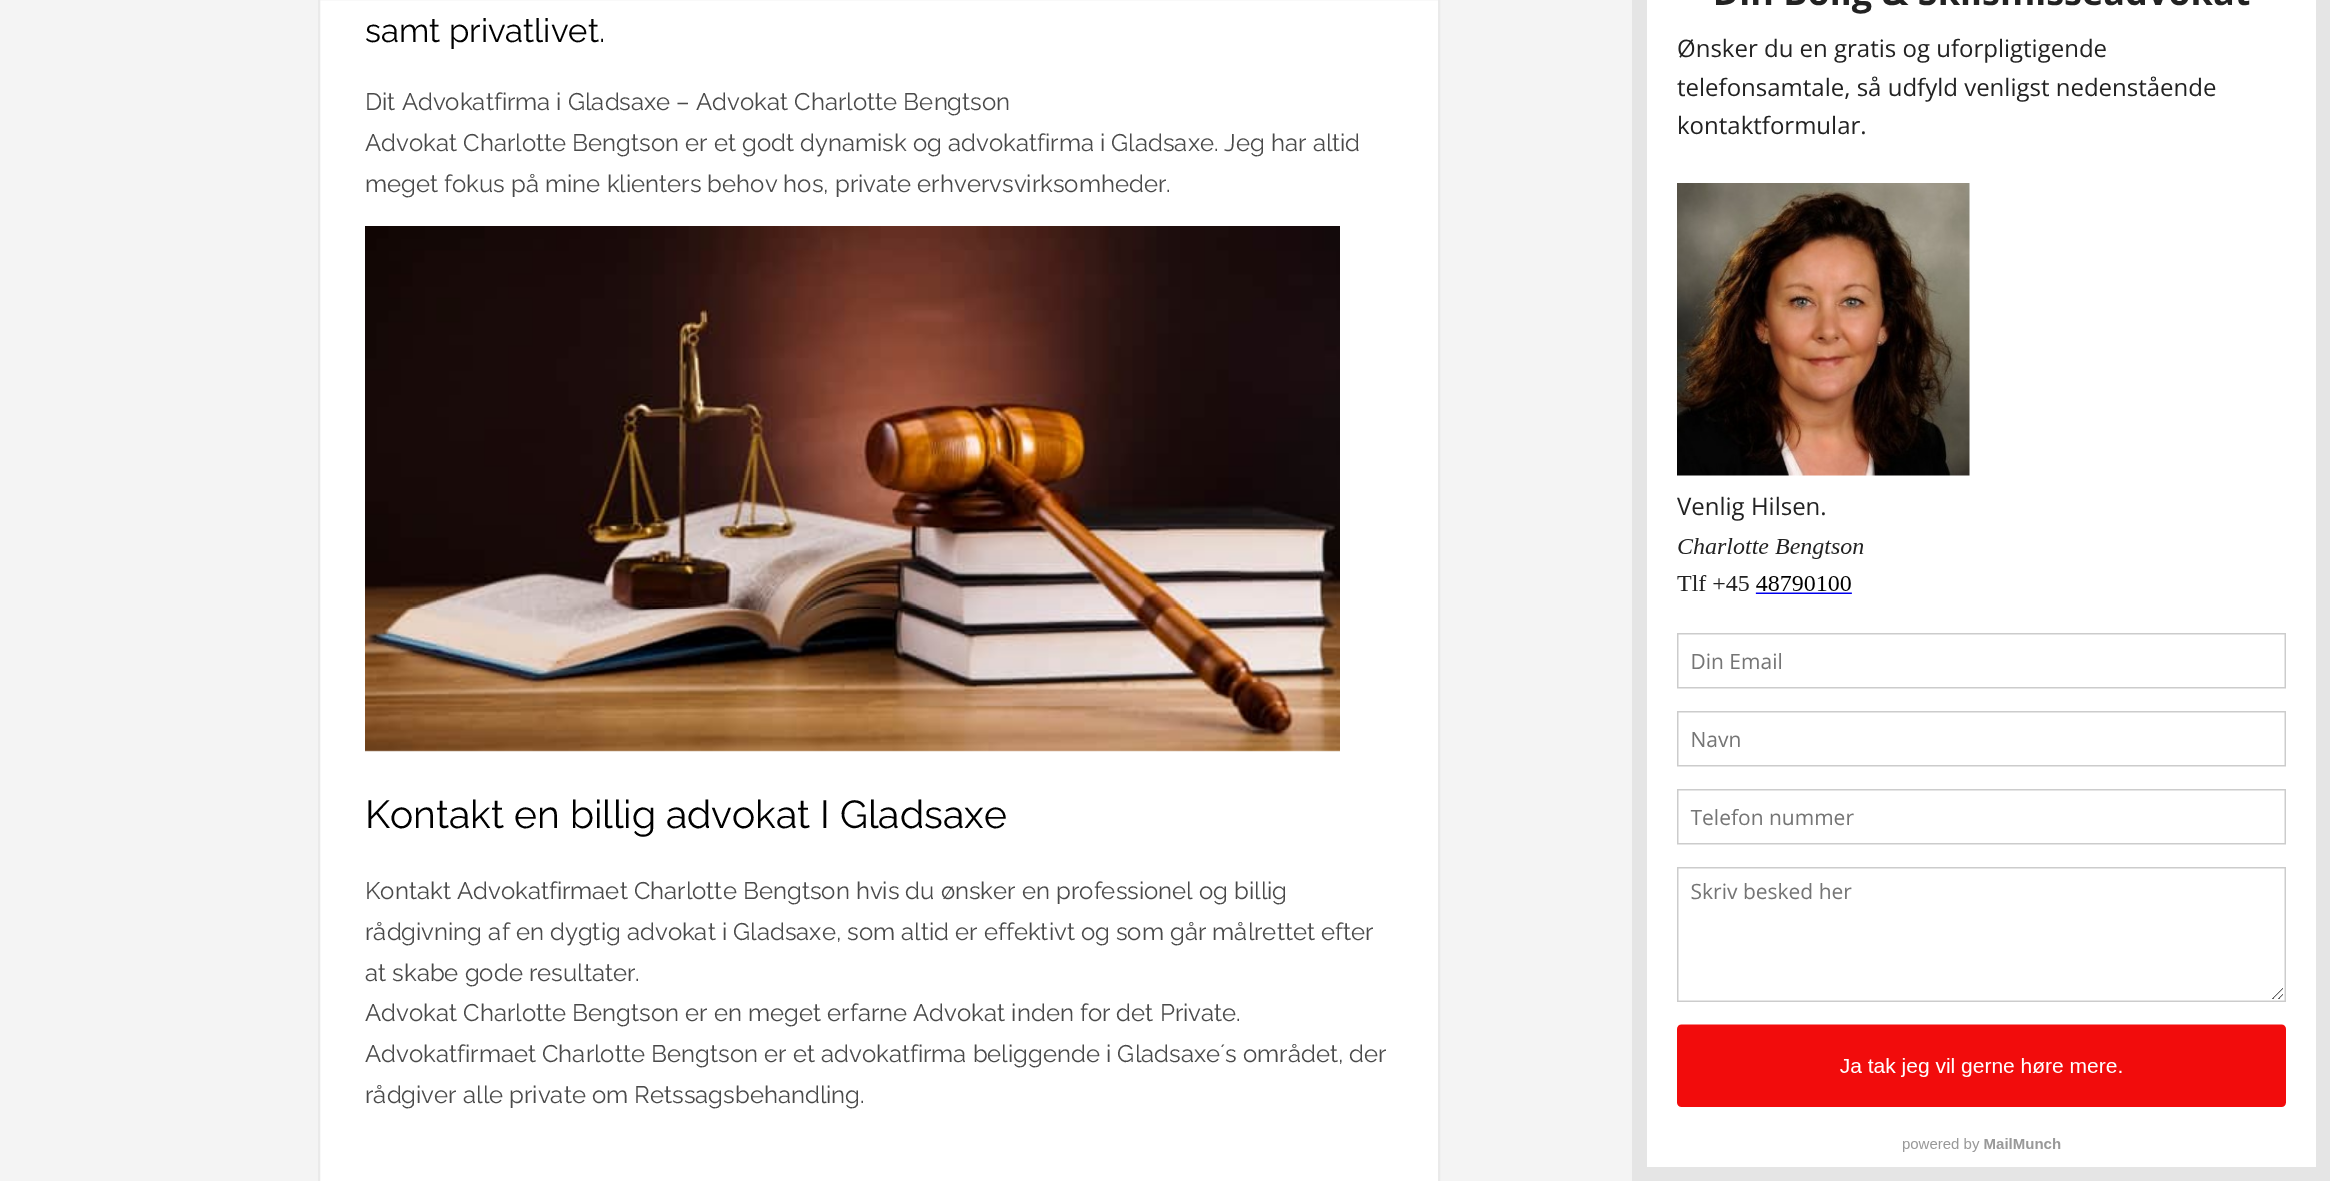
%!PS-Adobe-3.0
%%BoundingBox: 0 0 2330 1181
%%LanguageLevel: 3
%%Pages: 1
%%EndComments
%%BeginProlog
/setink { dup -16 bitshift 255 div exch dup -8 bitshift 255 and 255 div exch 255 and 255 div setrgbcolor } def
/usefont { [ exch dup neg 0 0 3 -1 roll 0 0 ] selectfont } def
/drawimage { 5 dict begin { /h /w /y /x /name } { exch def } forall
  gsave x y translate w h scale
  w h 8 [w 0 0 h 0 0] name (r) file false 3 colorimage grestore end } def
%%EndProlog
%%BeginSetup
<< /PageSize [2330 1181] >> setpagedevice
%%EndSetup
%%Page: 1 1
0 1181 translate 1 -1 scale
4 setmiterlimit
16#F4F4F4 setink
0 0 2330 1181 rectfill
16#FFFFFF setink
319 -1 moveto 1439 -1 lineto 1439 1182 lineto 319 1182 lineto closepath gsave fill grestore
16#EAEAEA setink
2 setlinewidth
stroke
/Raleway-Regular 33 usefont
16#000000 setink
365 42 moveto (samt privatlivet.) show
/Raleway-Regular 24 usefont
16#4A4A4A setink
[
    [(Dit Advokatfirma i Gladsaxe – Advokat Charlotte Bengtson) 365 110]
    [(Advokat Charlotte Bengtson er et godt dynamisk og advokatfirma i Gladsaxe. Jeg har altid) 365 151]
    [(meget fokus på mine klienters behov hos, private erhvervsvirksomheder.) 365 192]
] { aload pop moveto show } forall
(img1.raw) 365 226 975 526 drawimage
/Raleway-Regular 39 usefont
16#000000 setink
365 828 moveto (Kontakt en billig advokat I Gladsaxe) show
/Raleway-Regular 24 usefont
16#4A4A4A setink
[
    [(Kontakt Advokatfirmaet Charlotte Bengtson hvis du ønsker en professionel og billig) 365 899]
    [(rådgivning af en dygtig advokat i Gladsaxe, som altid er effektivt og som går målrettet efter) 365 940]
    [(at skabe gode resultater.) 365 981]
    [(Advokat Charlotte Bengtson er en meget erfarne Advokat inden for det Private.) 365 1021]
    [(Advokatfirmaet Charlotte Bengtson er et advokatfirma beliggende i Gladsaxe´s området, der) 365 1062]
    [(rådgiver alle private om Retssagsbehandling.) 365 1103]
] { aload pop moveto show } forall
(img2.raw) 1632 0 698 1181 drawimage
showpage
%%EOF
